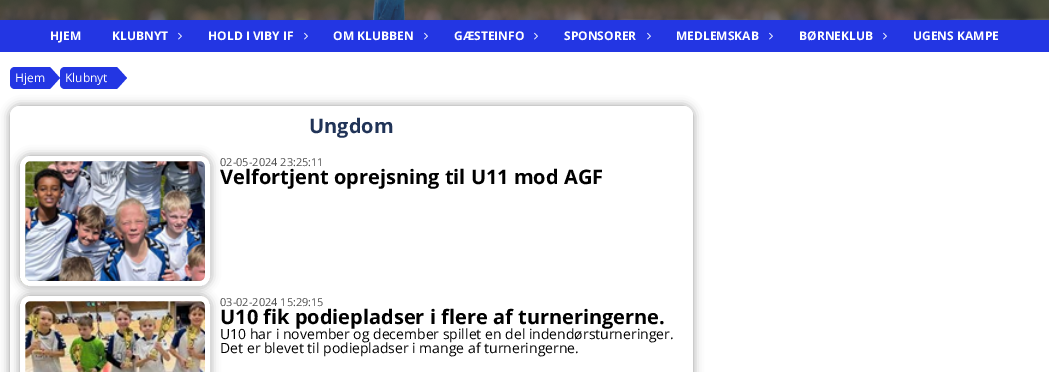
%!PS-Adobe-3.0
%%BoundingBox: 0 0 1049 372
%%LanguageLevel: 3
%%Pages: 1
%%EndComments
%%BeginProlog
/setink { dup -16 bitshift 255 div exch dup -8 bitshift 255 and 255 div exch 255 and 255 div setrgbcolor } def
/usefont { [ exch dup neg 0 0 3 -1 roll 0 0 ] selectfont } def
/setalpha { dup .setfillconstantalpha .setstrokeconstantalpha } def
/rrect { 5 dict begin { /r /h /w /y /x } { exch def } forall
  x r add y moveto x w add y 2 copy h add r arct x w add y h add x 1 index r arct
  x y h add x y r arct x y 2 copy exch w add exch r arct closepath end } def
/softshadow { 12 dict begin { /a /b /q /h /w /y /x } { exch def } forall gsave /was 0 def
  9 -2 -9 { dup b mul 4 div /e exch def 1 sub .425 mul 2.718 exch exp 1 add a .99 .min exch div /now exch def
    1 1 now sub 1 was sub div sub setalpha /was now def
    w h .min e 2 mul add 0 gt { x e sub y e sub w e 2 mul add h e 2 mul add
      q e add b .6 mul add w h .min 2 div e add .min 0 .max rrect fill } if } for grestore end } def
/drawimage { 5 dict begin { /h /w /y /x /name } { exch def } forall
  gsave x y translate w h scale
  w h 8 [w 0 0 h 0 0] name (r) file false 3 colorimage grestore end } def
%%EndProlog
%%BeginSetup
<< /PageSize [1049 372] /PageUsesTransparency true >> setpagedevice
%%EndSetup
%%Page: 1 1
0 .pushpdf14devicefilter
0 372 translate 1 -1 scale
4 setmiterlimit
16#FFFFFF setink
0 0 1049 372 rectfill
(img1.raw) 0 0 1049 20 drawimage
0.6 setalpha
16#363636 setink
0 0 1049 20 rectfill
1 setalpha
16#2336E3 setink
0 20 1049 32 rectfill
/OpenSans-Bold 12 usefont
16#FFFFFF setink
50 40 moveto (HJEM) show
112 40 moveto (KLUBNYT) show
(img2.raw) 178 32 4 8 drawimage
208 40 moveto (HOLD I VIBY IF) show
(img2.raw) 304 32 4 8 drawimage
333 40 moveto (OM KLUBBEN) show
(img2.raw) 424 32 4 8 drawimage
454 40 moveto (GÆSTEINFO) show
(img2.raw) 534 32 4 8 drawimage
564 40 moveto (SPONSORER) show
(img2.raw) 647 32 4 8 drawimage
676 40 moveto (MEDLEMSKAB) show
(img2.raw) 769 32 4 8 drawimage
799 40 moveto (BØRNEKLUB) show
(img2.raw) 883 32 4 8 drawimage
913 40 moveto (UGENS KAMPE) show
16#2336E3 setink
15 67 moveto 50 67 lineto 50 89 lineto 15 89 lineto 12 89 10 87 10 84 curveto 10 72 lineto 10 69 12 67 15 67 curveto closepath fill
/OpenSans-Regular 12 usefont
16#FFFFFF setink
15 82 moveto (Hjem) show
16#2336E3 setink
50 89 moveto 50 67 lineto 60 78 lineto closepath fill
65 67 moveto 117 67 lineto 117 89 lineto 65 89 lineto 62 89 60 87 60 84 curveto 60 72 lineto 60 69 62 67 65 67 curveto closepath fill
16#FFFFFF setink
65 82 moveto (Klubnyt) show
16#2336E3 setink
117 89 moveto 117 67 lineto 127 78 lineto closepath fill
16#303030 setink
10 106 683 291 10 5 0.5 softshadow
16#FFFFFF setink
10 106 683 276 10 rrect fill
20 106 moveto 683 106 lineto 688.5 106 693 110.5 693 116 curveto 693 146 lineto 10 146 lineto 10 116 lineto 10 110.5 14.5 106 20 106 curveto closepath fill
/OpenSans-Bold 20 usefont
16#203357 setink
309 133 moveto (Ungdom) show
16#303030 setink
20 156 190 130 10 5 0.5 softshadow
(img3.raw) 20 156 190 130 drawimage
16#FFFFFF setink
5 setlinewidth
22.5 158.5 185 125 7.5 rrect stroke
/OpenSans-Regular 11 usefont
16#4C4C4C setink
220 166 moveto (02-05-2024 23:25:11) show
/OpenSans-Bold 20 usefont
16#000000 setink
220 184 moveto (Velfortjent oprejsning til U11 mod AGF) show
16#303030 setink
20 296 190 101 10 5 0.5 softshadow
(img4.raw) 20 296 190 76 drawimage
16#FFFFFF setink
22.5 298.5 185 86 7.5 rrect stroke
/OpenSans-Regular 11 usefont
16#4C4C4C setink
220 306 moveto (03-02-2024 15:29:15) show
/OpenSans-Bold 20 usefont
16#000000 setink
220 324 moveto (U10 fik podiepladser i flere af turneringerne.) show
/OpenSans-Regular 14 usefont
220 339 moveto (U10 har i november og december spillet en del indendørsturneringer.) show
220 353 moveto (Det er blevet til podiepladser i mange af turneringerne.) show
.poppdf14devicefilter showpage
%%EOF
